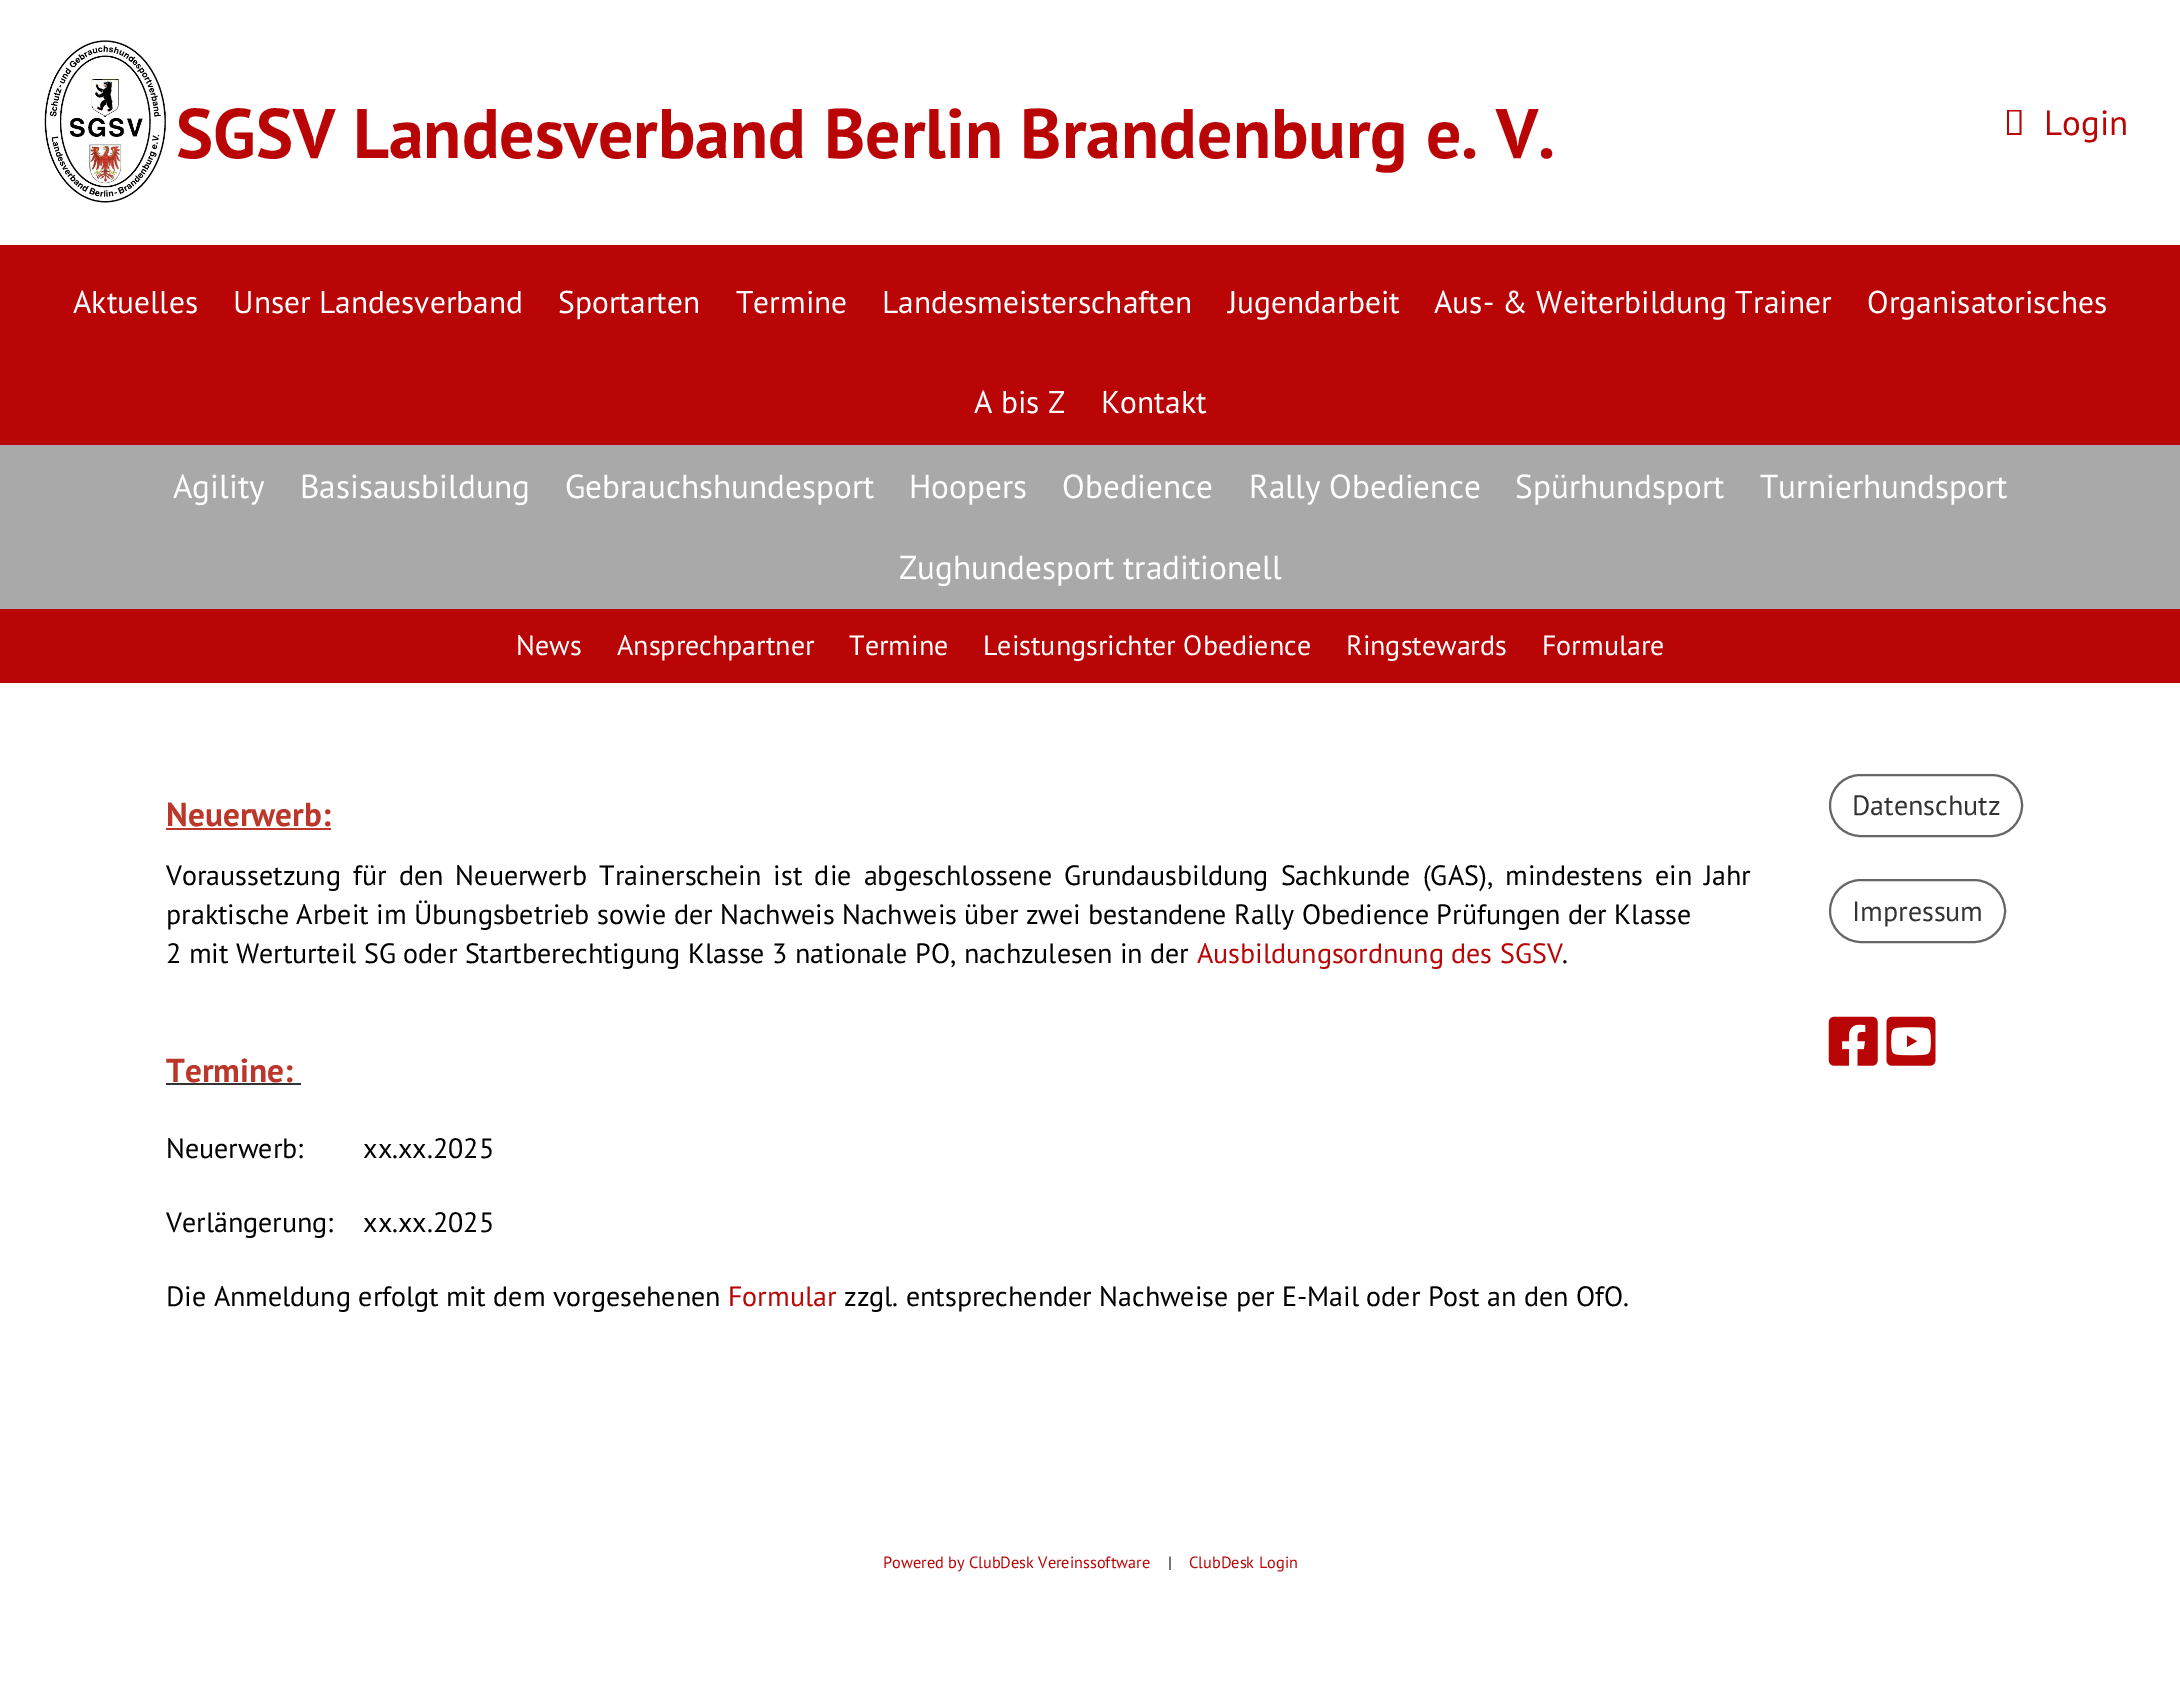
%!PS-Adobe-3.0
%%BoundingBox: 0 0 2180 1700
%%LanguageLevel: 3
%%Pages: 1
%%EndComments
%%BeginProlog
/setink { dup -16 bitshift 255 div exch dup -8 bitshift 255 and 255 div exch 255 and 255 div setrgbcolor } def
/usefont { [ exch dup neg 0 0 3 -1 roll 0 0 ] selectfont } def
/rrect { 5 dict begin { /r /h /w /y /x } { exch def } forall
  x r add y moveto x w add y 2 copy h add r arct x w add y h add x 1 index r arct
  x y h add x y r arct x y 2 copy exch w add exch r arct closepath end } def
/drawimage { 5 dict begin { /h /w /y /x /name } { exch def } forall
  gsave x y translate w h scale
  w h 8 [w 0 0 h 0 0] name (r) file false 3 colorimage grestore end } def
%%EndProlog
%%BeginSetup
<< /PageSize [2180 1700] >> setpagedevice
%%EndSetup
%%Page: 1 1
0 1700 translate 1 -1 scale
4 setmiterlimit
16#FFFFFF setink
0 0 2180 1700 rectfill
(img1.raw) 44 40 122 163 drawimage
/PTSans-Bold 70 usefont
16#B90505 setink
176 158 moveto (SGSV Landesverband Berlin Brandenburg e. V.) show
2007 135 moveto 2007 110 lineto 2021.5 110 lineto 2021.5 135 lineto closepath 2009 133 moveto 2019.5 133 lineto 2019.5 111.5 lineto 2009 111.5 lineto closepath fill
/PTSans-Regular 35 usefont
2044 135 moveto (Login) show
0 245 2180 200 rectfill
/PTSans-Regular 31.5 usefont
16#FFFFFF setink
[
    [(Aktuelles) 73 313]
    [(Unser Landesverband) 233 313]
    [(Sportarten) 558 313]
    [(Termine) 736 313]
    [(Landesmeisterschaften) 882 313]
    [(Jugendarbeit) 1228 313]
    [(Aus- & Weiterbildung Trainer) 1434 313]
    [(Organisatorisches) 1867 313]
    [(A bis Z) 974 413]
    [(Kontakt) 1101 413]
] { aload pop moveto show } forall
16#A9A9A9 setink
0 445 2180 164 rectfill
/PTSans-Regular 33.25 usefont
16#FFFFFF setink
[
    [(Agility) 173 498]
    [(Basisausbildung) 300 498]
    [(Gebrauchshundesport) 565 498]
    [(Hoopers) 909 498]
    [(Obedience) 1062 498]
    [(Rally Obedience) 1249 498]
    [(Spürhundsport) 1515 498]
    [(Turnierhundsport) 1760 498]
    [(Zughundesport traditionell) 899 579]
] { aload pop moveto show } forall
16#B90505 setink
0 609 2180 74 rectfill
/PTSans-Regular 28 usefont
16#FFFFFF setink
[
    [(News) 516 655]
    [(Ansprechpartner) 617 655]
    [(Termine) 849 655]
    [(Leistungsrichter Obedience) 983 655]
    [(Ringstewards) 1346 655]
    [(Formulare) 1542 655]
] { aload pop moveto show } forall
/PTSans-Bold 33.25 usefont
16#BA372A setink
166 826 moveto (Neuerwerb:) show
166 828 165 2 rectfill
/PTSans-Regular 28 usefont
16#000000 setink
166 885 moveto 4.75 0 32 (Voraussetzung für den Neuerwerb Trainerschein ist die abgeschlossene Grundausbildung Sachkunde \(GAS\), mindestens ein Jahr) widthshow
166 924 moveto (praktische Arbeit im Übungsbetrieb sowie der Nachweis Nachweis über zwei bestandene Rally Obedience Prüfungen der Klasse) show
166 963 moveto (2 mit Werturteil SG oder Startberechtigung Klasse 3 nationale PO, nachzulesen in der) show
16#B90505 setink
1197 963 moveto (Ausbildungsordnung des SGSV) show
16#000000 setink
1562 963 moveto (.) show
/PTSans-Bold 33.25 usefont
16#BA372A setink
166 1082 moveto (Termine:) show
16#333333 setink
166 1083 135 2 rectfill
/PTSans-Regular 28 usefont
16#000000 setink
[
    [(Neuerwerb:        xx.xx.2025) 166 1158]
    [(Verlängerung:    xx.xx.2025) 166 1232]
    [(Die Anmeldung erfolgt mit dem vorgesehenen) 166 1306]
] { aload pop moveto show } forall
16#B90505 setink
728 1306 moveto (Formular) show
16#000000 setink
844 1306 moveto (zzgl. entsprechender Nachweise per E-Mail oder Post an den OfO.) show
16#666666 setink
2 setlinewidth
1830 775 192 61 30.5 rrect stroke
16#333333 setink
1852 815 moveto (Datenschutz) show
16#666666 setink
1830 880 175 62 31 rrect stroke
16#333333 setink
1852 921 moveto (Impressum) show
(img2.raw) 1828 1016 50 50 drawimage
(img3.raw) 1886 1016 50 50 drawimage
/PTSans-Regular 16.3 usefont
16#B90505 setink
883 1568 moveto (Powered by ClubDesk Vereinssoftware) show
16#000000 setink
1168 1568 moveto (|) show
16#B90505 setink
1189 1568 moveto (ClubDesk Login) show
showpage
%%EOF
